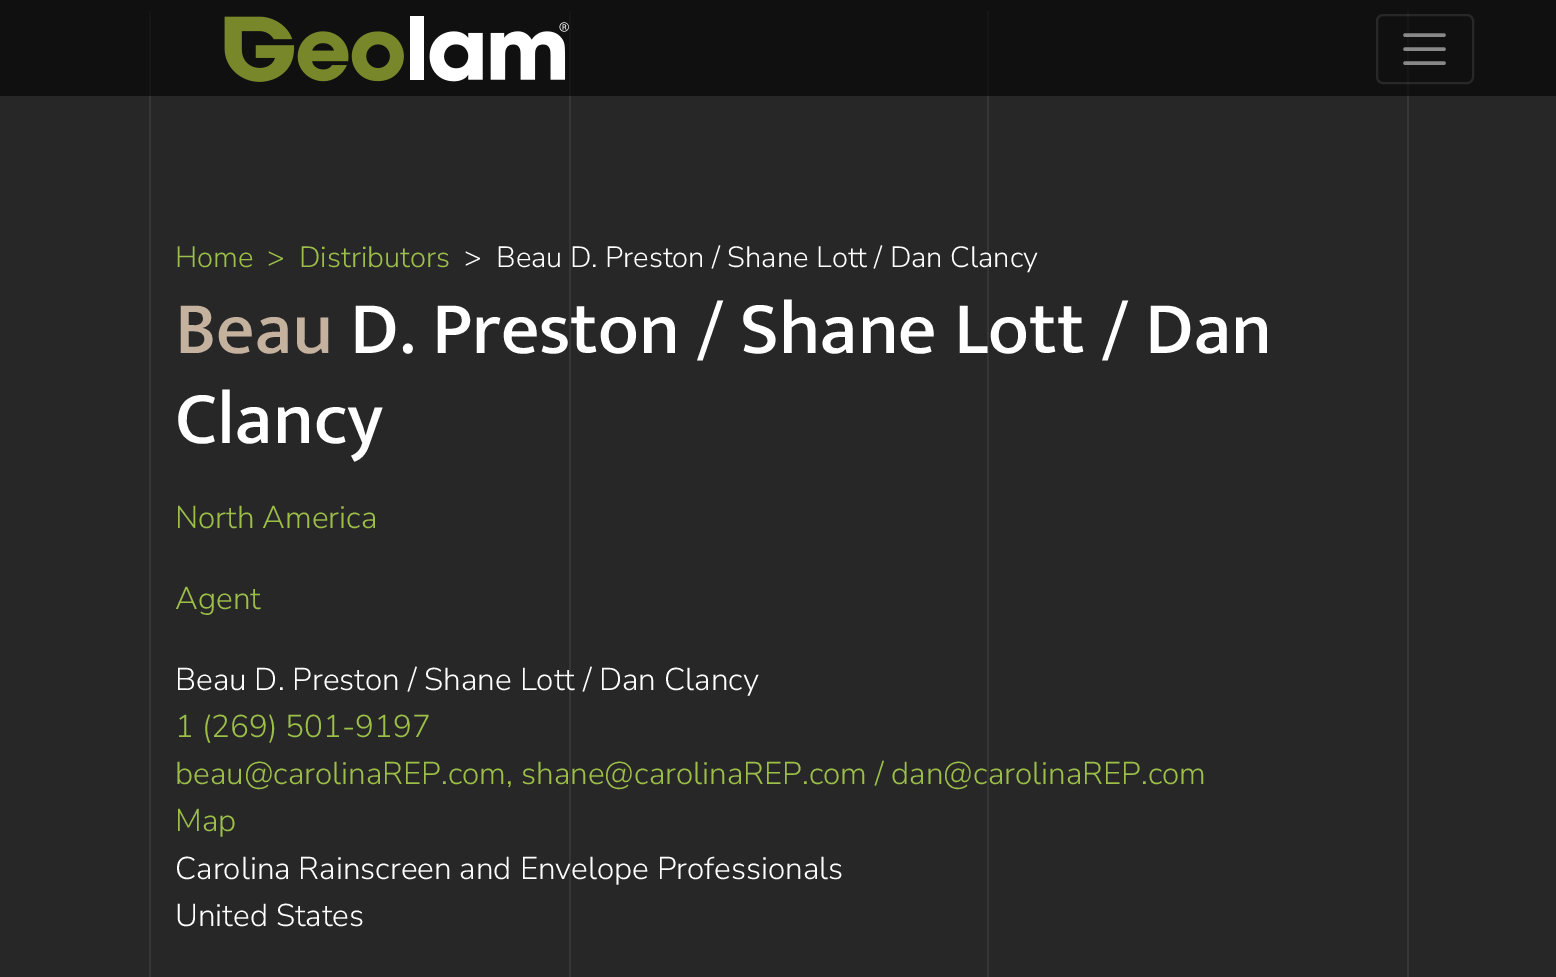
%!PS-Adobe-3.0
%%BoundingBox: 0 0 1556 977
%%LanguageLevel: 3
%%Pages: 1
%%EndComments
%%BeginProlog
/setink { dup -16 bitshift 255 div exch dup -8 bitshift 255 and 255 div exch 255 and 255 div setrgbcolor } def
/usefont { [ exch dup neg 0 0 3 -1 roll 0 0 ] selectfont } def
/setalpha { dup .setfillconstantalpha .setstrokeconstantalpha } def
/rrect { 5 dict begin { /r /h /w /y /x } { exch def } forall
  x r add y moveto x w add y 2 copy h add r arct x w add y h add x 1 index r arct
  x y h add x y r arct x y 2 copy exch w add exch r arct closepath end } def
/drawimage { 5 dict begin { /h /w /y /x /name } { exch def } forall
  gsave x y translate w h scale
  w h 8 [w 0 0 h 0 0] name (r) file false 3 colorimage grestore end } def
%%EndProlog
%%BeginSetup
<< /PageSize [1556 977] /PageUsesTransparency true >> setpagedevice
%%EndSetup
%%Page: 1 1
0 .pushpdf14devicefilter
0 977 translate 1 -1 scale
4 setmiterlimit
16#272727 setink
0 0 1556 977 rectfill
16#101010 setink
0 0 1556 96 rectfill
(img1.raw) 224 16 345 66 drawimage
16#161616 setink
1407 11 2 85 rectfill
0.1 setalpha
16#FFFFFF setink
2 setlinewidth
1377 15 96 68 6 rrect stroke
0.5 setalpha
3.5 setlinewidth
1 setlinecap
1405 35 moveto 1444 35 lineto 1405 49 moveto 1444 49 lineto 1405 63 moveto 1444 63 lineto stroke
1 setalpha
[
    [1407 96 2 881 16#363636]
    [149 96 2 881 16#363636]
    [149 11 2 85 16#161616]
    [987 96 2 881 16#363636]
    [987 11 2 85 16#161616]
    [569 96 2 881 16#363636]
    [569 11 2 85 16#161616]
] { aload pop setink rectfill } forall
/NunitoSans-Light 29.25 usefont
16#9CBF48 setink
[
    [(Home) 175 267]
    [(>) 267 267]
    [(Distributors) 299 267]
] { aload pop moveto show } forall
16#FFFFFF setink
464 267 moveto (>) show
496 267 moveto (Beau D. Preston / Shane Lott / Dan Clancy) show
/MuktaMahee-Medium 75.25 usefont
16#C4B29E setink
175 353 moveto (Beau) show
16#FFFFFF setink
350 353 moveto (D. Preston / Shane Lott / Dan) show
175 443 moveto (Clancy) show
/NunitoSans-Light 31.5 usefont
16#9CBF48 setink
175 528 moveto (North America) show
175 609 moveto (Agent) show
16#FFFFFF setink
175 690 moveto (Beau D. Preston / Shane Lott / Dan Clancy) show
16#9CBF48 setink
[
    [(1 \(269\) 501-9197) 175 737]
    [(beau@carolinaREP.com, shane@carolinaREP.com / dan@carolinaREP.com) 175 784]
    [(Map) 175 831]
] { aload pop moveto show } forall
16#FFFFFF setink
175 879 moveto (Carolina Rainscreen and Envelope Professionals) show
175 926 moveto (United States) show
.poppdf14devicefilter showpage
%%EOF
